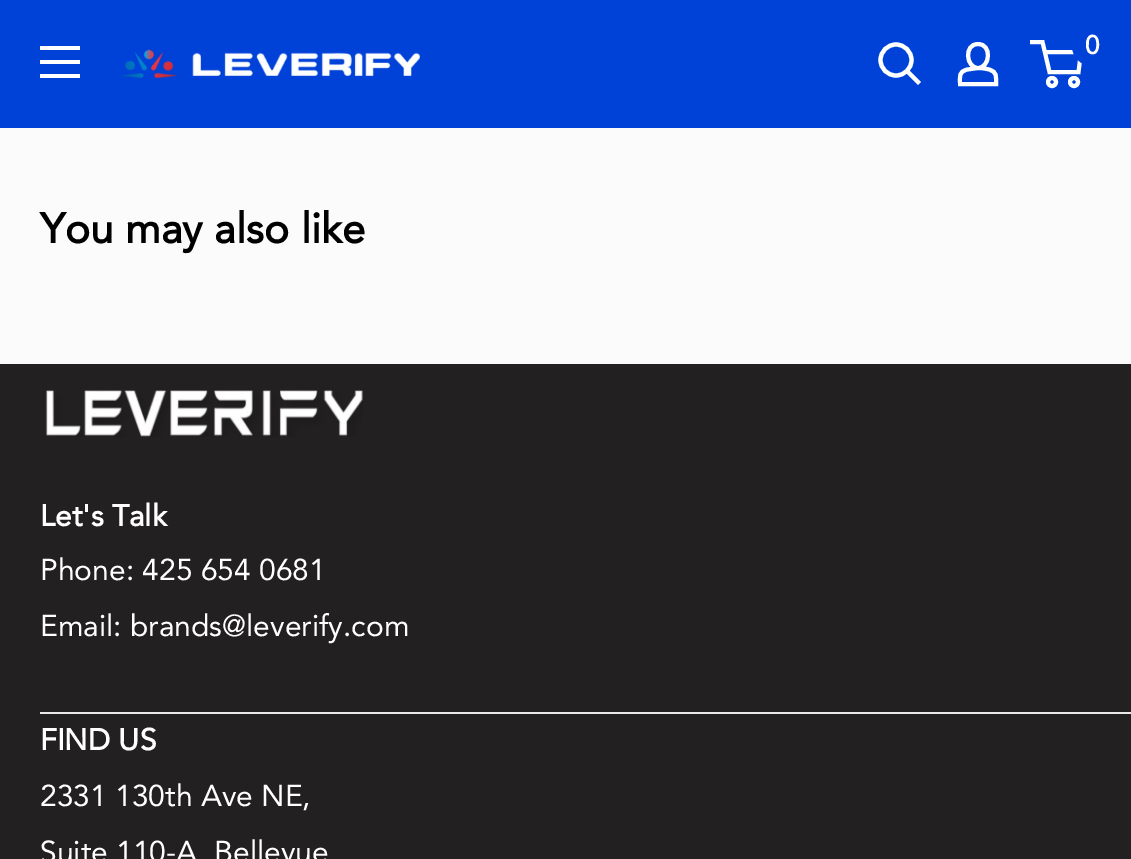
%!PS-Adobe-3.0
%%BoundingBox: 0 0 1131 859
%%LanguageLevel: 3
%%Pages: 1
%%EndComments
%%BeginProlog
/setink { dup -16 bitshift 255 div exch dup -8 bitshift 255 and 255 div exch 255 and 255 div setrgbcolor } def
/usefont { [ exch dup neg 0 0 3 -1 roll 0 0 ] selectfont } def
/disc { newpath 0 360 arc closepath } def
/drawimage { 5 dict begin { /h /w /y /x /name } { exch def } forall
  gsave x y translate w h scale
  w h 8 [w 0 0 h 0 0] name (r) file false 3 colorimage grestore end } def
%%EndProlog
%%BeginSetup
<< /PageSize [1131 859] >> setpagedevice
%%EndSetup
%%Page: 1 1
0 859 translate 1 -1 scale
4 setmiterlimit
16#FBFBFB setink
0 0 1131 859 rectfill
16#0041D8 setink
0 0 1131 128 rectfill
16#FFFFFF setink
40 74 moveto 80 74 lineto 80 78 lineto 40 78 lineto closepath 40 46 moveto 80 46 lineto 80 50 lineto 40 50 lineto closepath 40 60 moveto 80 60 lineto 80 64 lineto 40 64 lineto closepath eofill
(img1.raw) 120 49 300 30 drawimage
4.2 setlinewidth
2 setlinecap
918 82 moveto 907.5 71.5 lineto stroke
0 setlinecap
896 60 15.5 disc stroke
4 setlinewidth
978 68 moveto 982 68 985.5 68.5 989 69.5 curveto 997.5 72 996 76.5 996 84 curveto 960 84 lineto 960 76 958.5 71.5 967.5 69.5 curveto closepath 978 68 moveto 966 68 963.5 44 978 44 curveto 992.5 44 990 68 978 68 curveto closepath stroke
1052 82 4 disc stroke
1074 82 4 disc stroke
1044.5 52 moveto 1081 52 lineto 1078.5 72 lineto 1049.5 72 lineto 1042.5 42 lineto 1030 42 lineto stroke
16#0041D8 setink
1092 46 20 disc fill
/Avenir-Bold 26 usefont
16#FFFFFF setink
1085 54 moveto (0) show
/Avenir-Bold 42 usefont
16#000000 setink
40 243 moveto (You may also like) show
16#222021 setink
0 364 1131 495 rectfill
16#E8E8E8 setink
40 712 1091 2 rectfill
(img2.raw) 45 390 318 47 drawimage
/Avenir-Bold 30 usefont
16#FFFFFF setink
40 526 moveto (Let's Talk) show
/Avenir-Regular 30 usefont
40 580 moveto (Phone: 425 654 0681) show
40 636 moveto (Email: brands@leverify.com) show
/Avenir-Bold 30 usefont
40 750 moveto (FIND US) show
/Avenir-Regular 30 usefont
40 806 moveto (2331 130th Ave NE,) show
40 862 moveto (Suite 110-A, Bellevue) show
showpage
%%EOF
